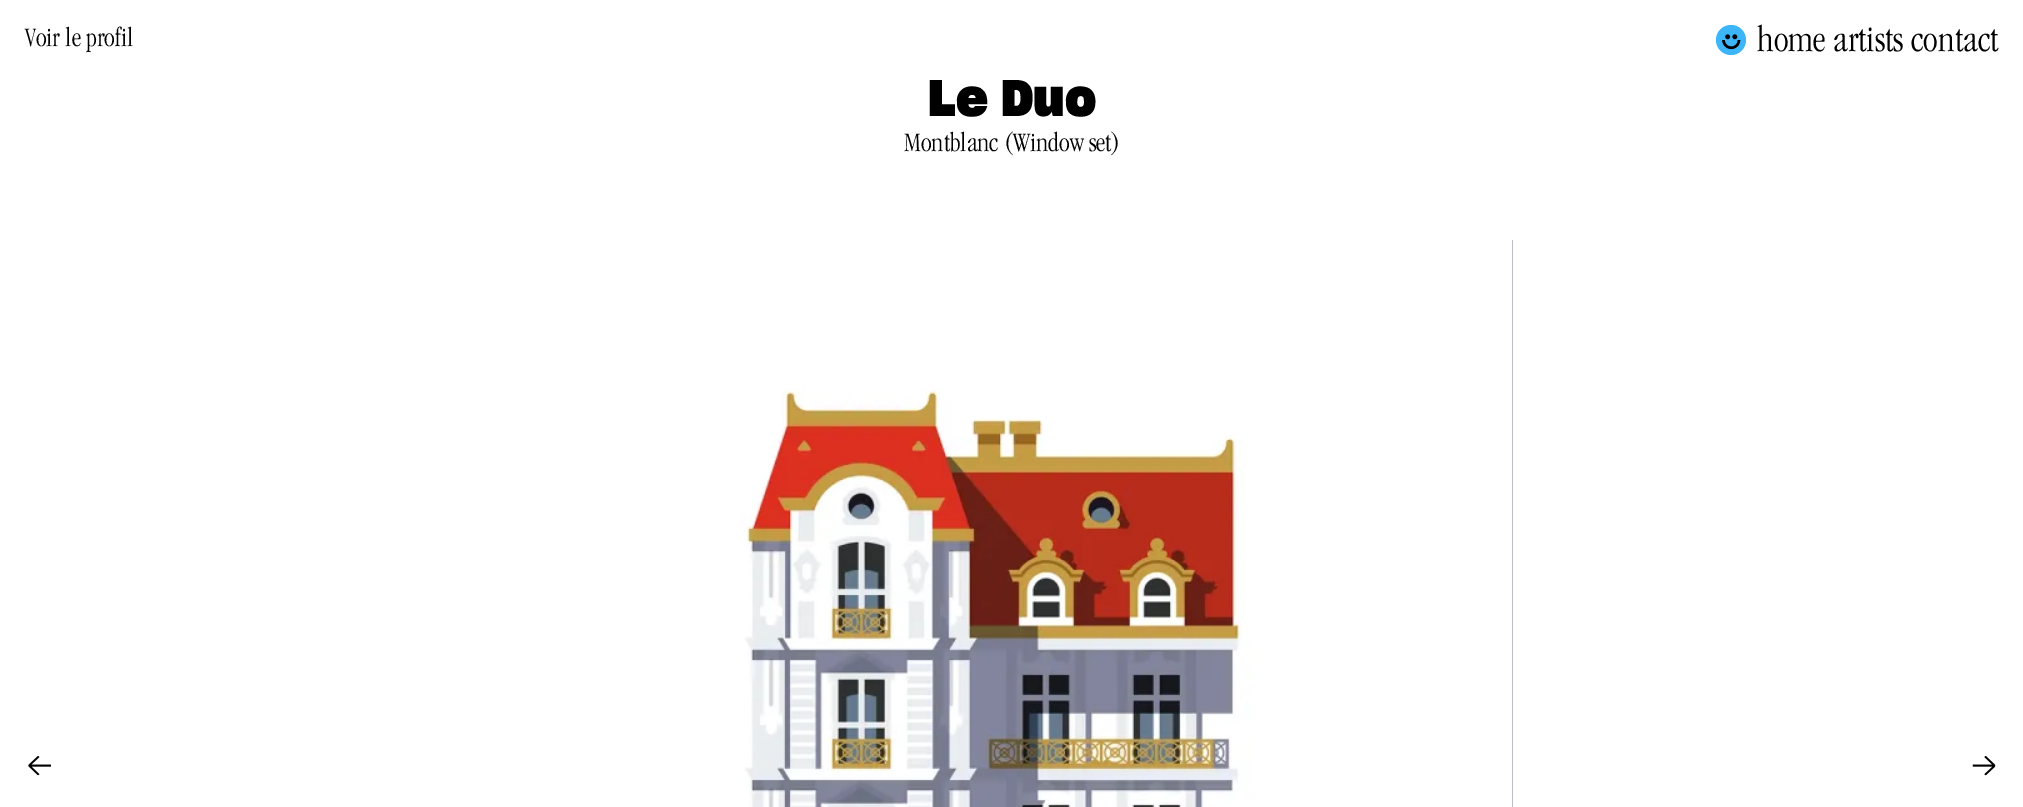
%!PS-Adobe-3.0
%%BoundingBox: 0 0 2023 807
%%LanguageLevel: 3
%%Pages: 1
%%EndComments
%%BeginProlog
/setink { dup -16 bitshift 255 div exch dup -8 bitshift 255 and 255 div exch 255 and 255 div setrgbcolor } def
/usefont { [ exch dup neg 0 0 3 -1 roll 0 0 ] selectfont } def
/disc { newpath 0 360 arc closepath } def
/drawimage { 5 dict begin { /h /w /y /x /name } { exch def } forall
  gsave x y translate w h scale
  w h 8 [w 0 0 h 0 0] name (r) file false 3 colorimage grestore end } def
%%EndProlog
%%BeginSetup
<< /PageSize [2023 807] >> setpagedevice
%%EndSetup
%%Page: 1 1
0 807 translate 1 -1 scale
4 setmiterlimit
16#FFFFFF setink
0 0 2023 807 rectfill
/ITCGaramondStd-Light 27.5 usefont
16#000000 setink
25 46 moveto (Voir le profil) show
16#3CB6F8 setink
1731 40 15 disc fill
(img1.raw) 1722 34 19 16 drawimage
/ITCGaramondStd-Light 37.5 usefont
16#000000 setink
1757 51 moveto (home artists contact) show
/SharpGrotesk-Bold 50 usefont
928 116 moveto (Le Duo) show
/ITCGaramondStd-Light 27.5 usefont
904 151 moveto (Montblanc \(Window set\)) show
16#787D91 setink
1512 240 1 567 rectfill
(img2.raw) 513 240 1000 567 drawimage
(img3.raw) 28 756 23 20 drawimage
(img4.raw) 1972 756 24 20 drawimage
showpage
%%EOF
